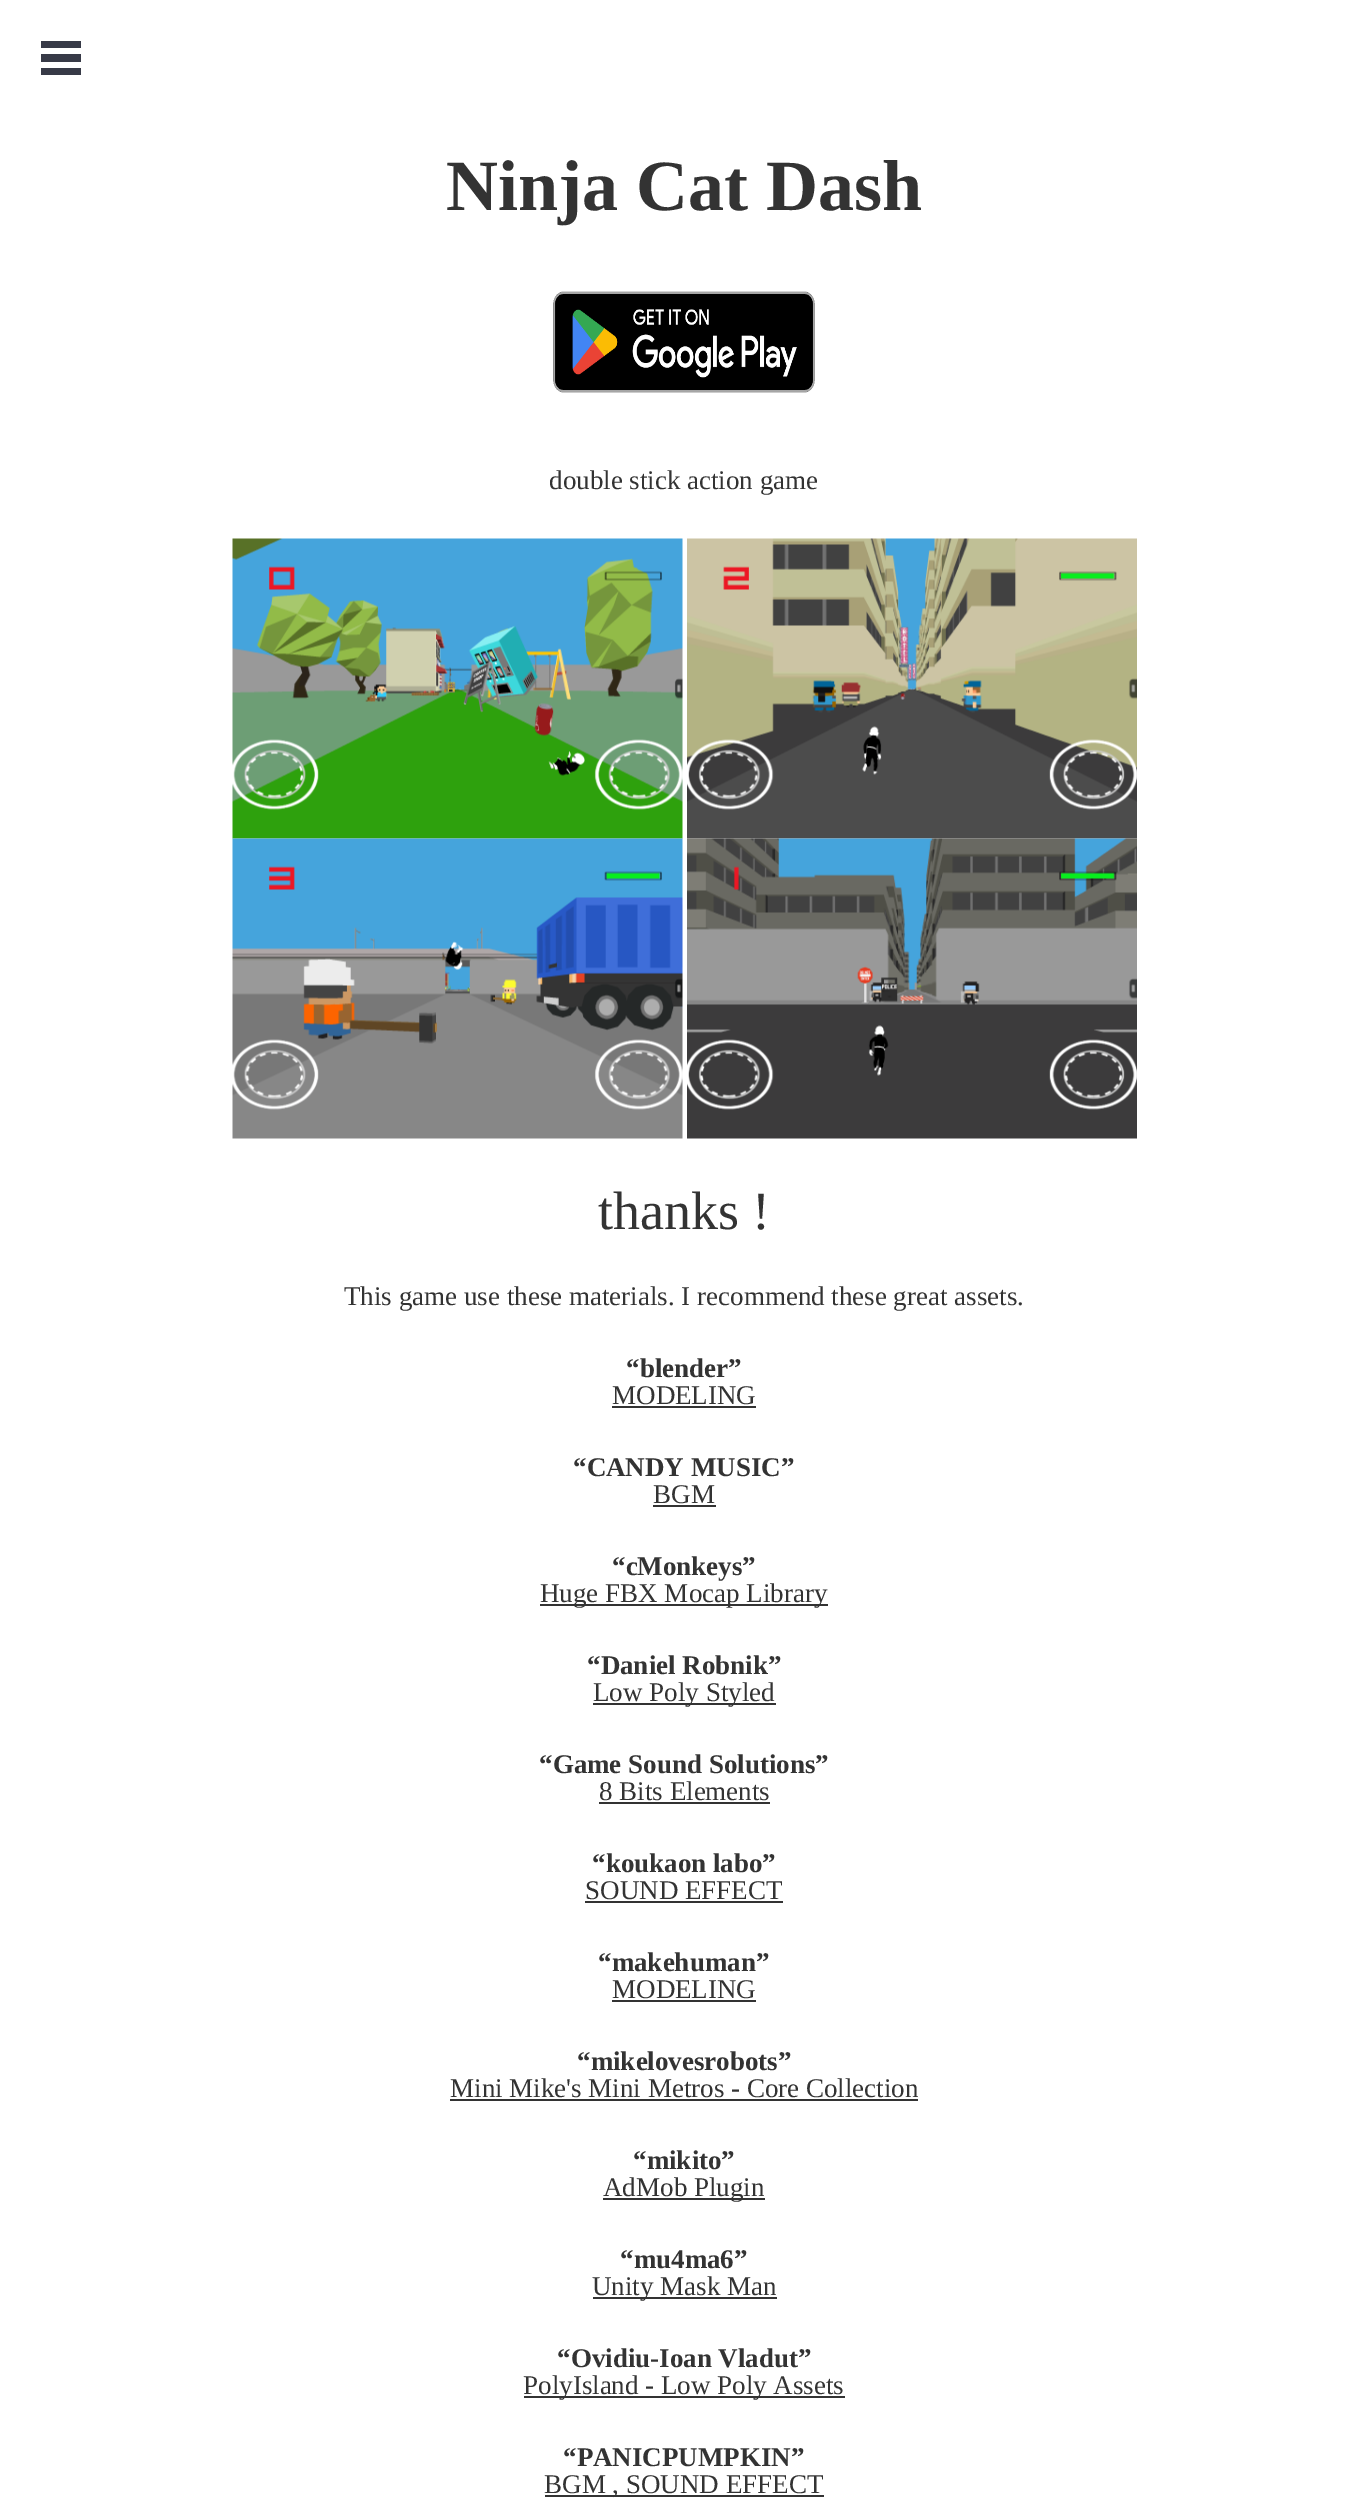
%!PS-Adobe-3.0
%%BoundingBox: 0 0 1368 2520
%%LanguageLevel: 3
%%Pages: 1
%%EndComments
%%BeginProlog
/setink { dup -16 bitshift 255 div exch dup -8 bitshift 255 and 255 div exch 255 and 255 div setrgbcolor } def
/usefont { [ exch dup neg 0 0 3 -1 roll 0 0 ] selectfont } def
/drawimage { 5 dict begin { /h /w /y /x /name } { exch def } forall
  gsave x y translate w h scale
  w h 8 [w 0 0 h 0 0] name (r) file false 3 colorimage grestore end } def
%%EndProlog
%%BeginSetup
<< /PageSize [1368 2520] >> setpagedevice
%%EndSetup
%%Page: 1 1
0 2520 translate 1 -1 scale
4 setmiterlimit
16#FFFFFF setink
0 0 1368 2520 rectfill
[
    [41 41 40 7 16#373A47]
    [41 54 40 8 16#373A47]
    [41 68 40 7 16#373A47]
] { aload pop setink rectfill } forall
/LiberationSerif-Bold 72 usefont
16#333333 setink
446 210 moveto (Ninja Cat Dash) show
(img1.raw) 553 291 262 102 drawimage
/LiberationSerif-Regular 27 usefont
549 489 moveto (double stick action game) show
(img2.raw) 232 538 451 301 drawimage
(img3.raw) 687 538 450 301 drawimage
(img4.raw) 232 838 451 301 drawimage
(img5.raw) 687 838 450 301 drawimage
/LiberationSerif-Regular 54 usefont
598 1229 moveto (thanks !) show
/LiberationSerif-Regular 27 usefont
344 1305 moveto (This game use these materials. I recommend these great assets.) show
/LiberationSerif-Bold 27 usefont
626 1377 moveto (“blender”) show
/LiberationSerif-Regular 27 usefont
612 1404 moveto (MODELING) show
612 1406 144 2 rectfill
/LiberationSerif-Bold 27 usefont
573 1476 moveto (“CANDY MUSIC”) show
/LiberationSerif-Regular 27 usefont
653 1503 moveto (BGM) show
653 1505 63 2 rectfill
/LiberationSerif-Bold 27 usefont
612 1575 moveto (“cMonkeys”) show
540 1604 288 2 rectfill
/LiberationSerif-Regular 27 usefont
540 1602 moveto (Huge FBX Mocap Library) show
/LiberationSerif-Bold 27 usefont
587 1674 moveto (“Daniel Robnik”) show
593 1703 183 2 rectfill
/LiberationSerif-Regular 27 usefont
593 1701 moveto (Low Poly Styled) show
/LiberationSerif-Bold 27 usefont
539 1773 moveto (“Game Sound Solutions”) show
/LiberationSerif-Regular 27 usefont
599 1800 moveto (8 Bits Elements) show
599 1802 171 2 rectfill
/LiberationSerif-Bold 27 usefont
592 1872 moveto (“koukaon labo”) show
/LiberationSerif-Regular 27 usefont
585 1899 moveto (SOUND EFFECT) show
585 1901 198 2 rectfill
/LiberationSerif-Bold 27 usefont
598 1971 moveto (“makehuman”) show
/LiberationSerif-Regular 27 usefont
612 1998 moveto (MODELING) show
612 2000 144 2 rectfill
/LiberationSerif-Bold 27 usefont
577 2070 moveto (“mikelovesrobots”) show
/LiberationSerif-Regular 27 usefont
450 2097 moveto (Mini Mike's Mini Metros - Core Collection) show
450 2099 468 2 rectfill
/LiberationSerif-Bold 27 usefont
633 2169 moveto (“mikito”) show
603 2198 162 2 rectfill
/LiberationSerif-Regular 27 usefont
603 2196 moveto (AdMob Plugin) show
/LiberationSerif-Bold 27 usefont
620 2268 moveto (“mu4ma6”) show
593 2297 184 2 rectfill
/LiberationSerif-Regular 27 usefont
592 2295 moveto (Unity Mask Man) show
/LiberationSerif-Bold 27 usefont
557 2367 moveto (“Ovidiu-Ioan Vladut”) show
524 2396 321 2 rectfill
/LiberationSerif-Regular 27 usefont
523 2394 moveto (PolyIsland - Low Poly Assets) show
/LiberationSerif-Bold 27 usefont
563 2466 moveto (“PANICPUMPKIN”) show
545 2495 279 2 rectfill
/LiberationSerif-Regular 27 usefont
544 2493 moveto (BGM , SOUND EFFECT) show
showpage
%%EOF
